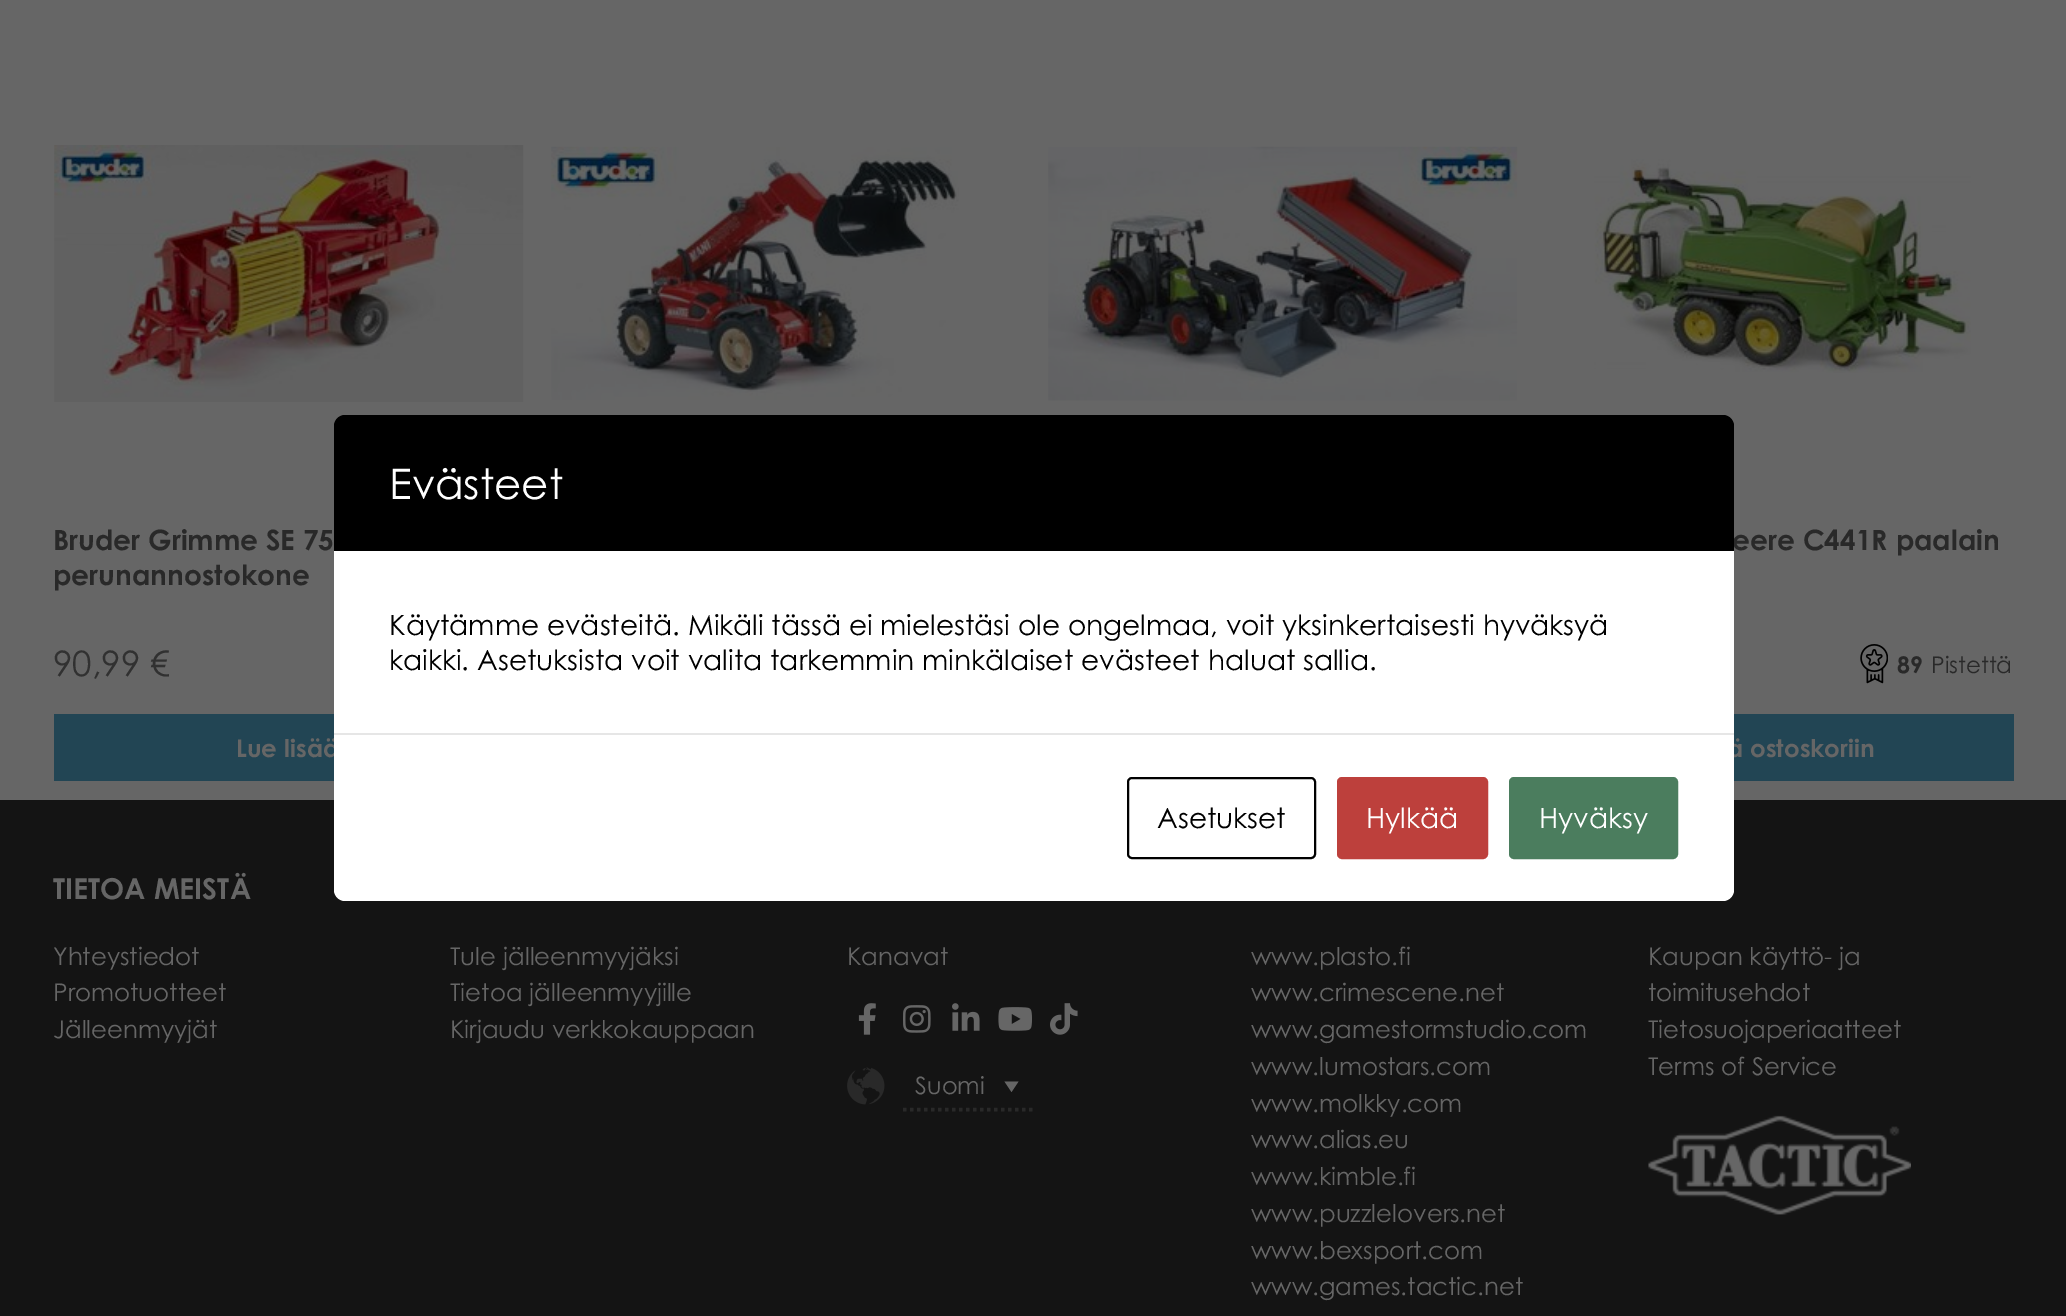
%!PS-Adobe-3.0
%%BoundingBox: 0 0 2066 1316
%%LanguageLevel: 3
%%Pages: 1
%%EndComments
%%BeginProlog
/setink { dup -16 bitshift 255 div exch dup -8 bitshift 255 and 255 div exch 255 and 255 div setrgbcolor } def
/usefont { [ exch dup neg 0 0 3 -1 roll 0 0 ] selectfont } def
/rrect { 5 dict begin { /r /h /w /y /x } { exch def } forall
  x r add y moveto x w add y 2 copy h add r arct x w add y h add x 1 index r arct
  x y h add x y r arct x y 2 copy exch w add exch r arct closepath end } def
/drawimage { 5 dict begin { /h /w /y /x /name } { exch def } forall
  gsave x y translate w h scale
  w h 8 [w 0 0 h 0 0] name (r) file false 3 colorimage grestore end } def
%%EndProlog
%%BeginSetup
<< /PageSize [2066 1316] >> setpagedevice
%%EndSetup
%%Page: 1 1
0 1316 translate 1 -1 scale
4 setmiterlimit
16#666666 setink
0 0 2066 1316 rectfill
/CenturyGothic-Bold 28 usefont
16#292929 setink
1732 550 moveto (eere C441R paalain) show
16#000000 setink
345 415 moveto 1723 415 lineto 1729 415 1734 420 1734 426 curveto 1734 551 lineto 334 551 lineto 334 426 lineto 334 420 339 415 345 415 curveto closepath fill
/CenturyGothic-Regular 42 usefont
16#FFFFFF setink
389 499 moveto (Evästeet) show
334 551 1400 182 rectfill
/CenturyGothic-Regular 28 usefont
16#000000 setink
389 635 moveto (Käytämme evästeitä. Mikäli tässä ei mielestäsi ole ongelmaa, voit yksinkertaisesti hyväksyä) show
389 670 moveto (kaikki. Asetuksista voit valita tarkemmin minkälaiset evästeet haluat sallia.) show
16#224554 setink
54 714 280 67 rectfill
/CenturyGothic-Bold 24.5 usefont
16#666666 setink
236 757 moveto (Lue lisää) show
16#224554 setink
1734 714 280 67 rectfill
16#666666 setink
1727 757 moveto (ä ostoskoriin) show
16#141414 setink
0 800 2066 516 rectfill
16#FFFFFF setink
334 733 moveto 1734 733 lineto 1734 890 lineto 1734 896 1729 901 1723 901 curveto 345 901 lineto 339 901 334 896 334 890 curveto closepath fill
16#E6E6E6 setink
334 733 1400 2 rectfill
16#000000 setink
2 setlinewidth
1128 778 187 80 4 rrect stroke
/CenturyGothic-Regular 28 usefont
1157 828 moveto (Asetukset) show
16#BD403C setink
1338 778 149 80 4 rrect gsave fill grestore
stroke
16#FFFFFF setink
1366 828 moveto (Hylkää) show
16#4B7D5E setink
1510 778 167 80 4 rrect gsave fill grestore
stroke
16#FFFFFF setink
1539 828 moveto (Hyväksy) show
(img1.raw) 551 146 408 254 drawimage
(img2.raw) 1048 146 470 255 drawimage
(img3.raw) 54 145 470 257 drawimage
/CenturyGothic-Bold 28 usefont
16#292929 setink
53 550 moveto (Bruder Grimme SE 75) show
53 585 moveto (perunannostokone) show
/CenturyGothic-Regular 35 usefont
16#313131 setink
53 676 moveto (90,99 €) show
(img4.raw) 1594 159 377 214 drawimage
(img5.raw) 1860 644 28 40 drawimage
/CenturyGothic-Bold 23 usefont
16#292929 setink
1897 673 moveto (89) show
/CenturyGothic-Regular 23 usefont
1931 673 moveto (Pistettä) show
/CenturyGothic-Bold 28.75 usefont
16#666666 setink
53 899 moveto (TIETOA MEISTÄ) show
/CenturyGothic-Regular 24.5 usefont
[
    [(Yhteystiedot) 53 965]
    [(Promotuotteet) 53 1001]
    [(Jälleenmyyjät) 53 1038]
    [(Tule jälleenmyyjäksi) 450 965]
    [(Tietoa jälleenmyyjille) 450 1001]
    [(Kirjaudu verkkokauppaan) 450 1038]
    [(Kanavat) 847 965]
] { aload pop moveto show } forall
(img6.raw) 858 1003 18 32 drawimage
(img7.raw) 903 1005 28 28 drawimage
(img8.raw) 952 1003 28 28 drawimage
(img9.raw) 998 1007 34 24 drawimage
(img10.raw) 1050 1003 28 32 drawimage
(img11.raw) 847 1067 38 38 drawimage
16#292929 setink
3.5 setlinewidth
[3.5 3.5] 0 setdash
903 1109.5 moveto 1036 1109.5 lineto stroke
/CenturyGothic-Regular 24 usefont
16#666666 setink
915 1094 moveto (Suomi) show
1004.5 1081.5 moveto 1018.5 1081.5 lineto 1011.5 1092 lineto closepath fill
/CenturyGothic-Regular 24.5 usefont
[
    [(www.plasto.fi) 1251 965]
    [(www.crimescene.net) 1251 1001]
    [(www.gamestormstudio.com) 1251 1038]
    [(www.lumostars.com) 1251 1075]
    [(www.molkky.com) 1251 1112]
    [(www.alias.eu) 1251 1148]
    [(www.kimble.fi) 1251 1185]
    [(www.puzzlelovers.net) 1251 1222]
    [(www.bexsport.com) 1251 1259]
    [(www.games.tactic.net) 1251 1295]
    [(Kaupan käyttö- ja) 1648 965]
    [(toimitusehdot) 1648 1001]
    [(Tietosuojaperiaatteet) 1648 1038]
    [(Terms of Service) 1648 1075]
] { aload pop moveto show } forall
(img12.raw) 1648 1115 263 100 drawimage
showpage
%%EOF
